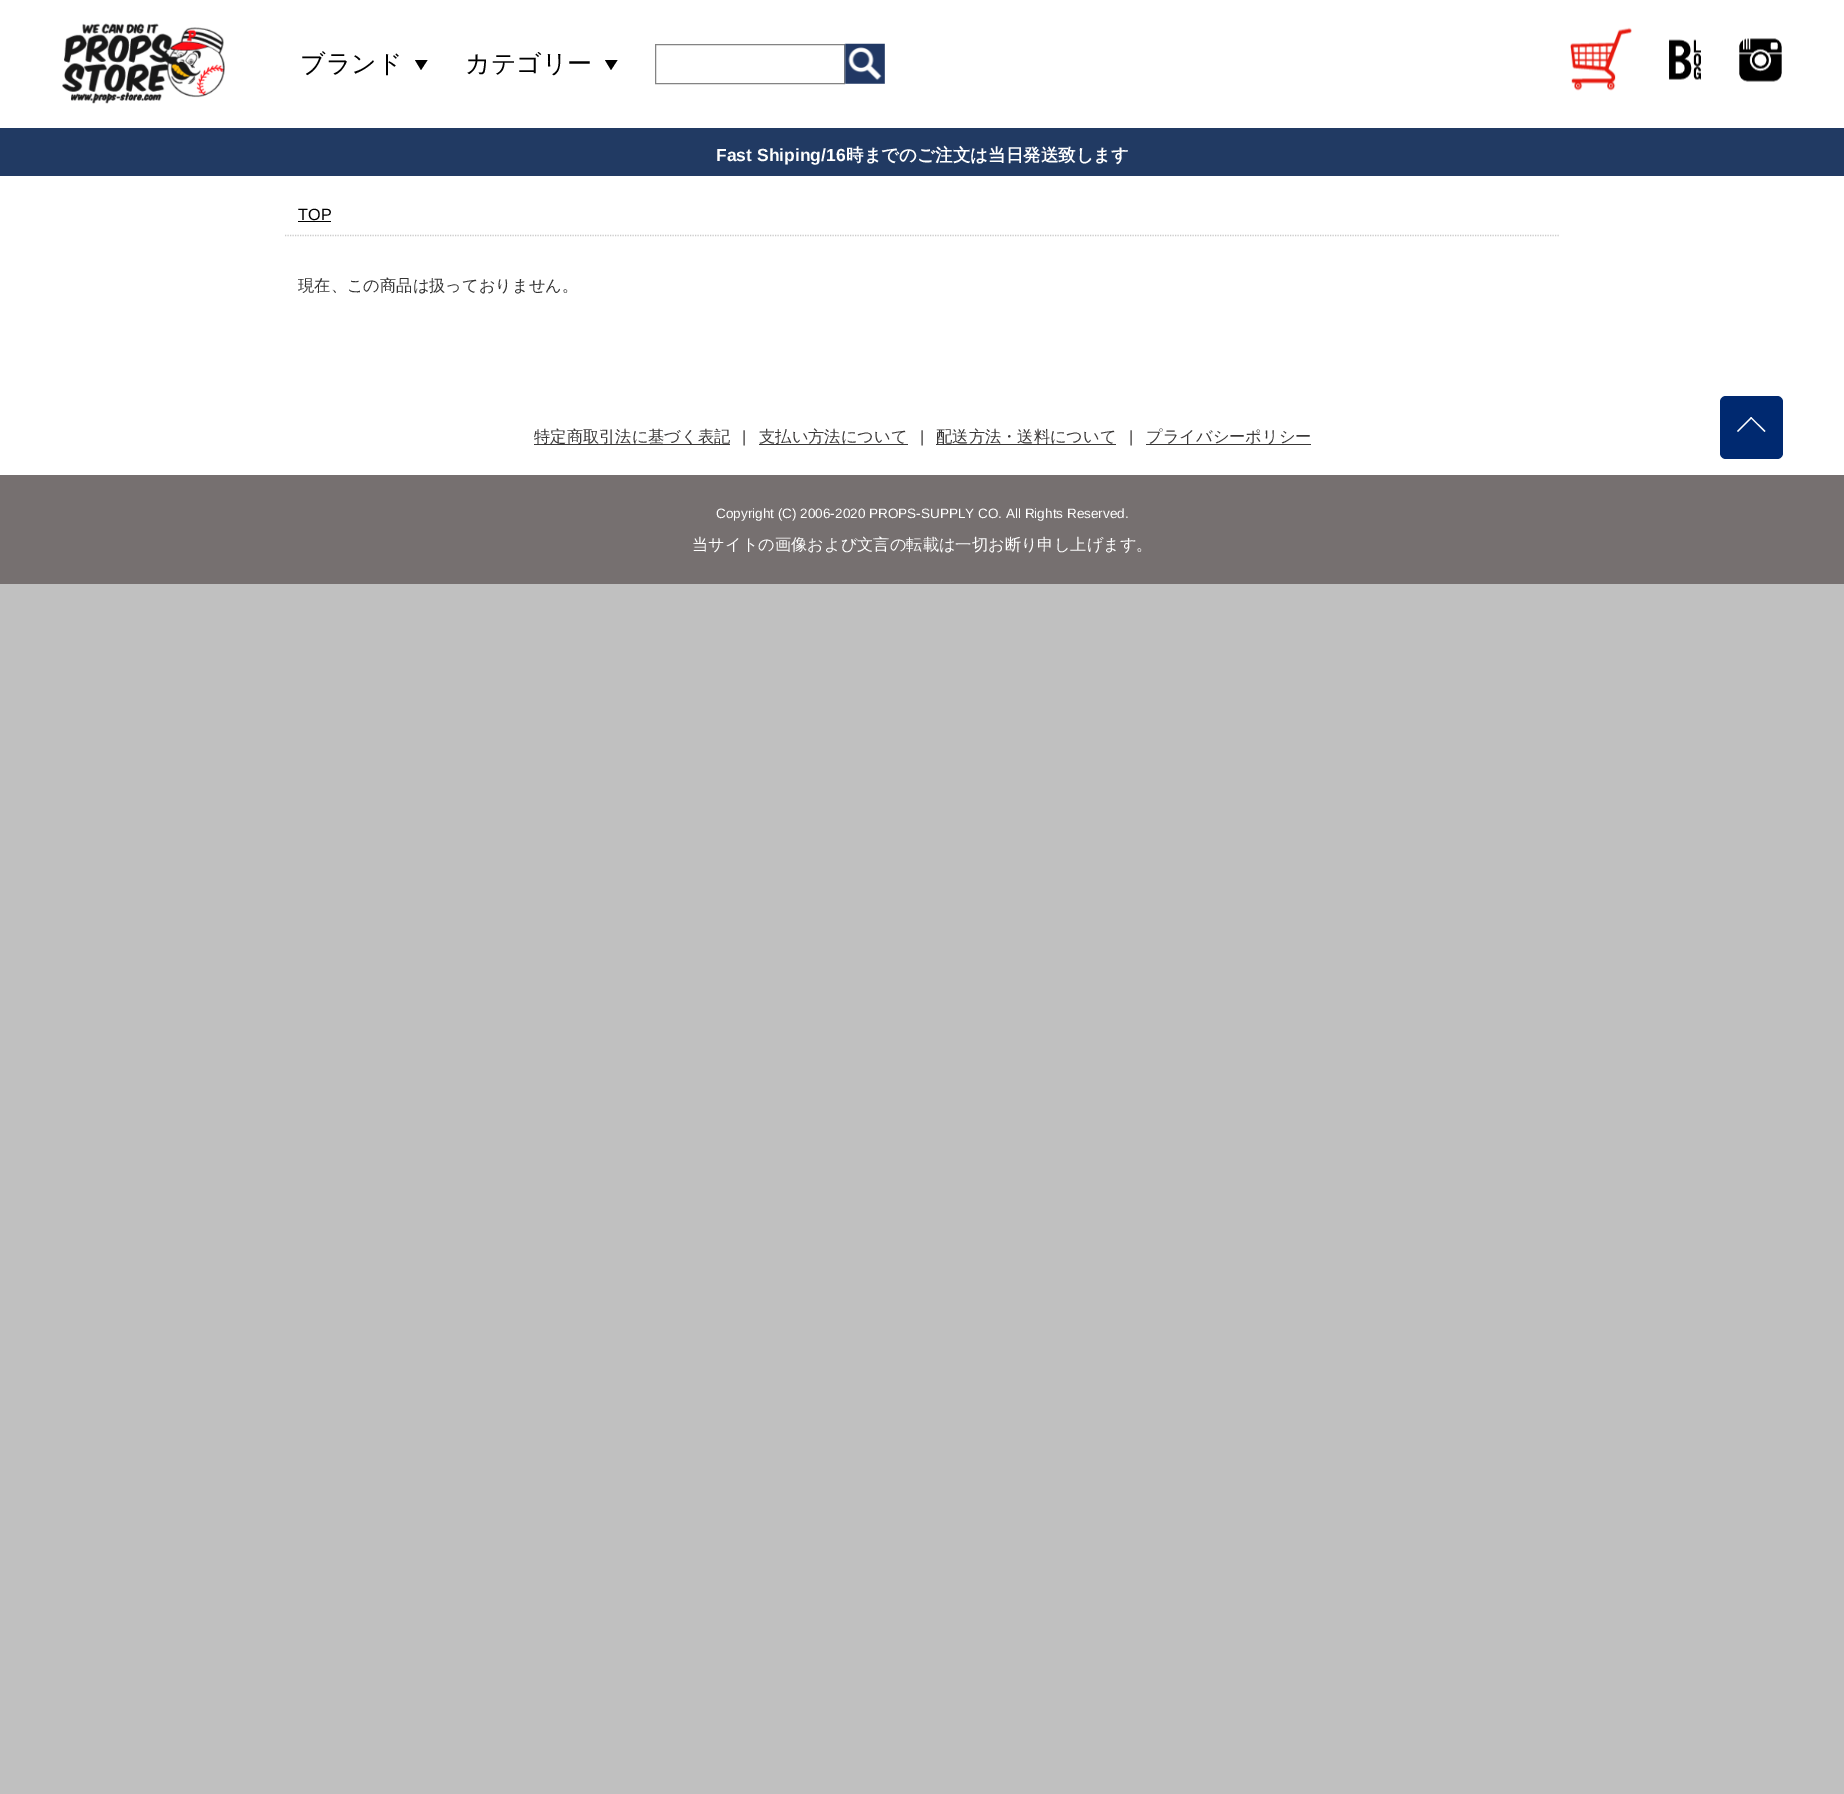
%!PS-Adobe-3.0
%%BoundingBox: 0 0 1844 1794
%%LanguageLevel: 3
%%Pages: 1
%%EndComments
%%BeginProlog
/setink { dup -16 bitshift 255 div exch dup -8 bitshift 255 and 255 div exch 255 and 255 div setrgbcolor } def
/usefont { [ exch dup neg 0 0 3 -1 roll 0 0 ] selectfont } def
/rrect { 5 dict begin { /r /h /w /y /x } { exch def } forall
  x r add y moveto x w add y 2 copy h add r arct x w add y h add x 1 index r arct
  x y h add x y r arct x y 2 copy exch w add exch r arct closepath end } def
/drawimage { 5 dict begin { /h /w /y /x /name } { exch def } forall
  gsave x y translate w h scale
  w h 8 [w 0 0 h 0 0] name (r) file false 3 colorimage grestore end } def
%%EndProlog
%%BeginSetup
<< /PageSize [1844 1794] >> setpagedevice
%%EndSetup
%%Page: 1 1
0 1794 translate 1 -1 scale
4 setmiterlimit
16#C0C0C0 setink
0 0 1844 1794 rectfill
16#FFFFFF setink
0 0 1844 475 rectfill
(img1.raw) 62 23 163 81 drawimage
/WenQuanYiZenHei-Medium 25 usefont
16#000000 setink
300 72 moveto (ブランド) show
415 60 moveto 427.5 60 lineto 421 70 lineto closepath fill
465 72 moveto (カテゴリー) show
605 60 moveto 617.5 60 lineto 611 70 lineto closepath fill
16#848484 setink
655.5 44.5 189 39 rectstroke
(img2.raw) 844 43 41 41 drawimage
(img3.raw) 1570 27 62 64 drawimage
(img4.raw) 1669 39 32 41 drawimage
(img5.raw) 1739 38 43 44 drawimage
16#213A63 setink
0 128 1844 48 rectfill
/LiberationSans-Bold 17.5 usefont
16#FFFFFF setink
716 161 moveto (Fast Shiping/16) show
/WenQuanYiZenHei-Bold 17.5 usefont
846 161 moveto (時までのご注文は当日発送致します) show
16#CCCCCC setink
1.2 setlinewidth
[1.25 1.25] 0 setdash
285 235.5 moveto 1560 235.5 lineto stroke
/LiberationSans-Regular 16.25 usefont
16#000000 setink
298 220 moveto (TOP) show
298 221 33 1 rectfill
/WenQuanYiZenHei-Medium 16.25 usefont
16#333333 setink
298 291 moveto (現在、この商品は扱っておりません。) show
16#3A3838 setink
534 444 196 1 rectfill
534 442 moveto (特定商取引法に基づく表記) show
/LiberationSans-Regular 16.25 usefont
742 442 moveto (|) show
759 444 149 1 rectfill
/WenQuanYiZenHei-Medium 16.25 usefont
759 442 moveto (支払い方法について) show
/LiberationSans-Regular 16.25 usefont
920 442 moveto (|) show
936 444 180 1 rectfill
/WenQuanYiZenHei-Medium 16.25 usefont
936 442 moveto (配送方法・送料について) show
/LiberationSans-Regular 16.25 usefont
1129 442 moveto (|) show
1146 444 165 1 rectfill
/WenQuanYiZenHei-Medium 16.25 usefont
1146 442 moveto (プライバシーポリシー) show
16#002970 setink
1720 396 63 63 6 rrect fill
16#FFFFFF setink
1737 431 moveto 1751 417 lineto 1752 418 lineto 1738 432 lineto closepath fill
1750.5 418 moveto 1751 417 lineto 1765.5 431 lineto 1764.5 432 lineto closepath fill
16#767070 setink
0 475 1844 109 rectfill
/LiberationSans-Regular 13.55 usefont
16#FFFFFF setink
716 518 moveto (Copyright \(C\) 2006-2020 PROPS-SUPPLY CO. All Rights Reserved.) show
/WenQuanYiZenHei-Medium 16.25 usefont
692 550 moveto (当サイトの画像および文言の転載は一切お断り申し上げます。) show
showpage
%%EOF
